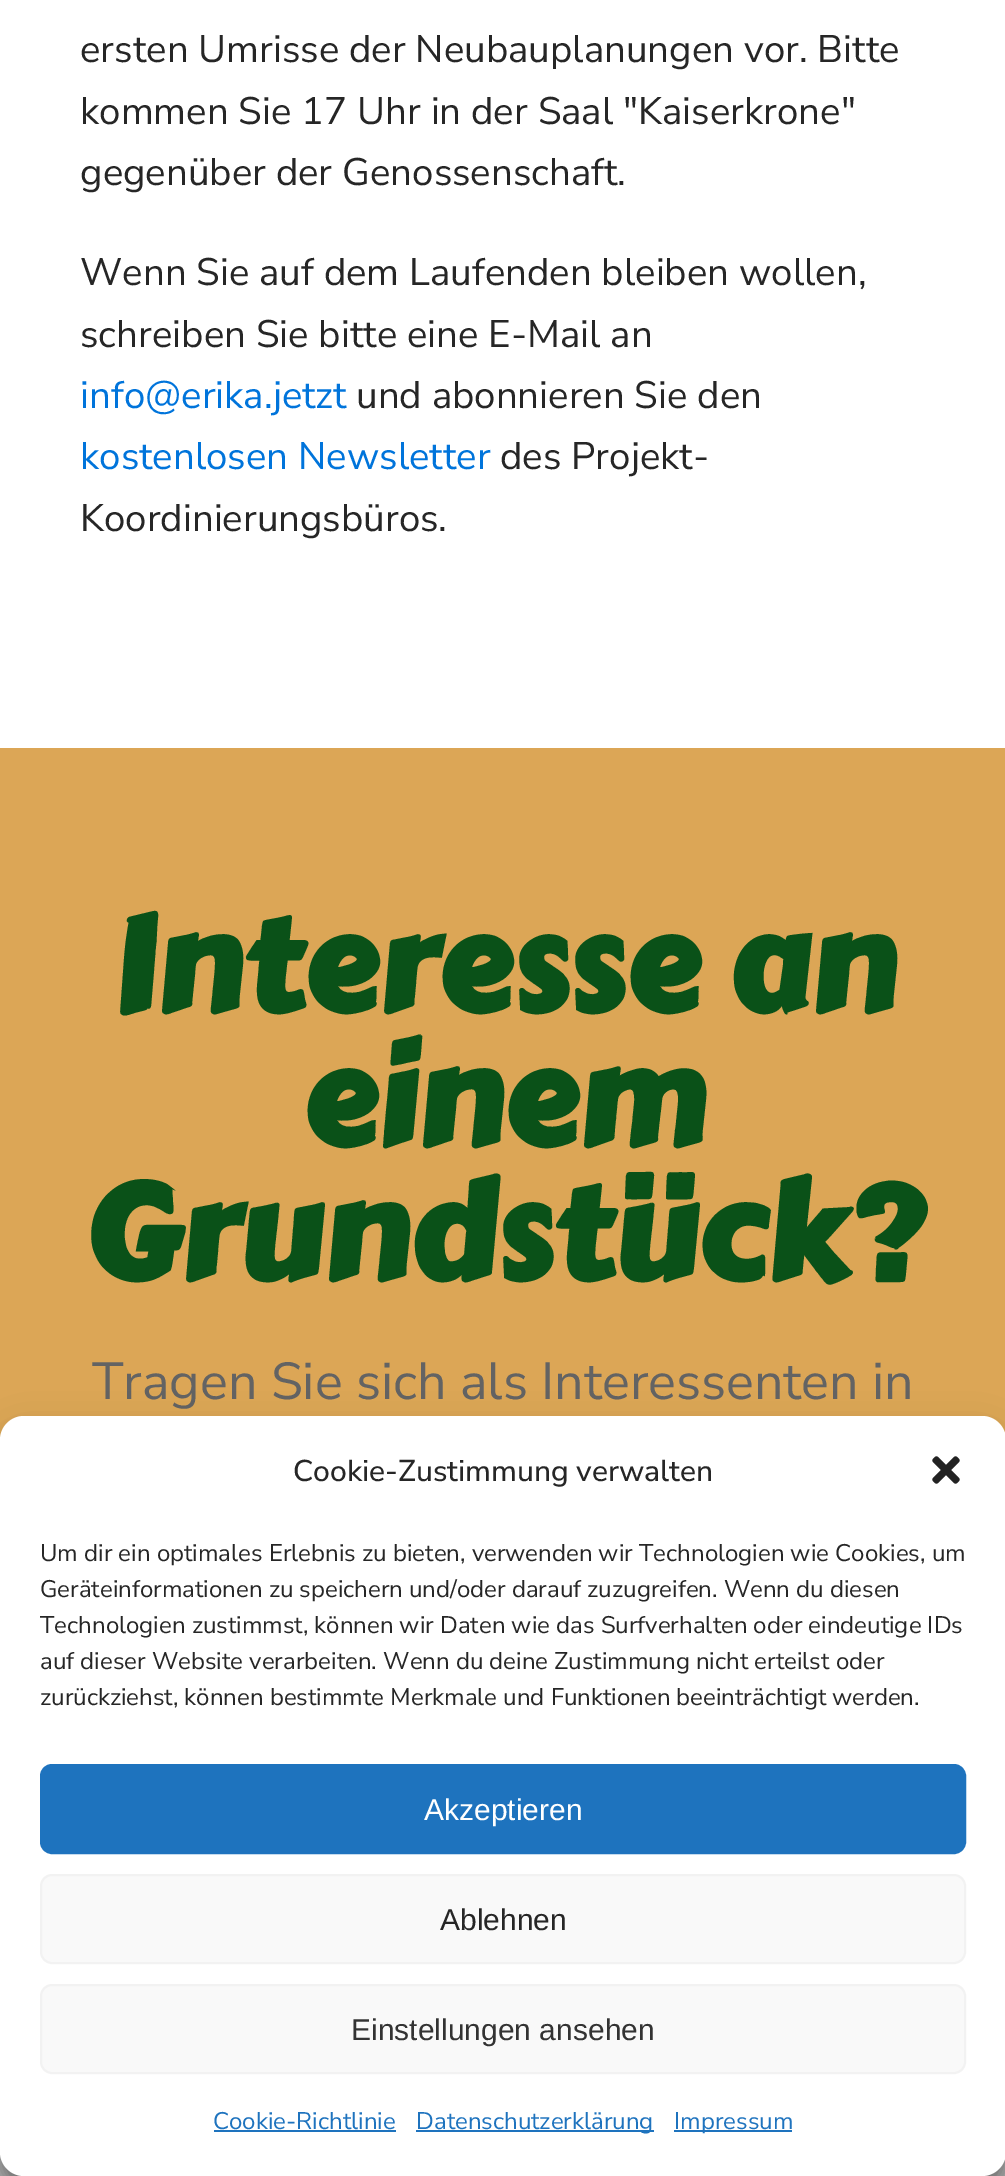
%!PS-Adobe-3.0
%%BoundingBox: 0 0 1005 2176
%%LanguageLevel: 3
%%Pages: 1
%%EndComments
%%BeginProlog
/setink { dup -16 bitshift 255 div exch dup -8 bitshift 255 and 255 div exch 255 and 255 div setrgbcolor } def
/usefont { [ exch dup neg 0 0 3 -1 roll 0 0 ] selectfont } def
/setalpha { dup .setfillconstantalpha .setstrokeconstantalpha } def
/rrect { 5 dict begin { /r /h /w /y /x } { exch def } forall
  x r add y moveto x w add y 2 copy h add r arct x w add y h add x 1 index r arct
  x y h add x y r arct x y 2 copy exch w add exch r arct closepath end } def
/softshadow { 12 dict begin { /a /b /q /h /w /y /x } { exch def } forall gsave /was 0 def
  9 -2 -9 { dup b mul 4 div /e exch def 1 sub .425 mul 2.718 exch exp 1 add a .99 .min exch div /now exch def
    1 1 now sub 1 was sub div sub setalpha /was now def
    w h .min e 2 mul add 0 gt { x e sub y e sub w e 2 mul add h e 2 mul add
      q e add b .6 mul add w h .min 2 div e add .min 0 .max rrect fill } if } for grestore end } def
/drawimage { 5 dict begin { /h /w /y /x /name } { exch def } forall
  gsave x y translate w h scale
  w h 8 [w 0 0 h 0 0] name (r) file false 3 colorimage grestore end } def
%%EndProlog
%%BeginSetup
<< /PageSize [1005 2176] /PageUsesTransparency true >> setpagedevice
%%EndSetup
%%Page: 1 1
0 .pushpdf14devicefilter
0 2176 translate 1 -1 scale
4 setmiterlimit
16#FFFFFF setink
0 0 1005 2176 rectfill
/NunitoSans-Regular 38.4 usefont
16#262626 setink
[
    [(ersten Umrisse der Neubauplanungen vor. Bitte) 80 62]
    [(kommen Sie 17 Uhr in der Saal "Kaiserkrone") 80 124]
    [(gegenüber der Genossenschaft.) 80 185]
    [(Wenn Sie auf dem Laufenden bleiben wollen,) 80 285]
    [(schreiben Sie bitte eine E-Mail an) 80 347]
] { aload pop moveto show } forall
16#0074DB setink
80 408 moveto (info@erika.jetzt) show
16#262626 setink
356 408 moveto (und abonnieren Sie den) show
16#0074DB setink
80 469 moveto (kostenlosen Newsletter) show
16#262626 setink
500 469 moveto (des Projekt-) show
80 531 moveto (Koordinierungsbüros.) show
16#DCA656 setink
0 748 1005 692 rectfill
/CarterOne-Bold 134 usefont
16#0A5118 setink
[
    [(Interesse an) 111 1011]
    [(einem) 301 1145]
    [(Grundstück?) 83 1279]
] { aload pop moveto show } forall
/NunitoSans-Regular 52 usefont
16#636363 setink
92 1399 moveto (Tragen Sie sich als Interessenten in) show
16#B5B5B5 setink
0 2152 1005 24 rectfill
16#000000 setink
0 1428 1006 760 24 6 0.23 softshadow
0 1436 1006 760 24 20 0.19 softshadow
16#FFFFFF setink
0 1416 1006 760 24 rrect fill
/NunitoSans-Medium 30 usefont
16#262626 setink
293 1481 moveto (Cookie-Zustimmung verwalten) show
(img1.raw) 932 1456 28 28 drawimage
/NunitoSans-Regular 24 usefont
[
    [(Um dir ein optimales Erlebnis zu bieten, verwenden wir Technologien wie Cookies, um) 40 1561]
    [(Geräteinformationen zu speichern und/oder darauf zuzugreifen. Wenn du diesen) 40 1597]
    [(Technologien zustimmst, können wir Daten wie das Surfverhalten oder eindeutige IDs) 40 1633]
    [(auf dieser Website verarbeiten. Wenn du deine Zustimmung nicht erteilst oder) 40 1669]
    [(zurückziehst, können bestimmte Merkmale und Funktionen beeinträchtigt werden.) 40 1705]
] { aload pop moveto show } forall
16#1E73BE setink
41 1765 924 88 11 rrect gsave fill grestore
2 setlinewidth
stroke
/LiberationSans-Regular 30 usefont
16#FFFFFF setink
424 1820 moveto (Akzeptieren) show
16#F9F9F9 setink
41 1875 924 88 11 rrect gsave fill grestore
16#F2F2F2 setink
stroke
16#262626 setink
440 1930 moveto (Ablehnen) show
16#F9F9F9 setink
41 1985 924 88 11 rrect gsave fill grestore
16#F2F2F2 setink
stroke
16#333333 setink
351 2040 moveto (Einstellungen ansehen) show
/NunitoSans-Regular 24 usefont
16#1E73BE setink
213 2129 moveto (Cookie-Richtlinie) show
214 2130 182 2 rectfill
416 2130 238 2 rectfill
416 2129 moveto (Datenschutzerklärung) show
674 2130 118 2 rectfill
674 2129 moveto (Impressum) show
.poppdf14devicefilter showpage
%%EOF
